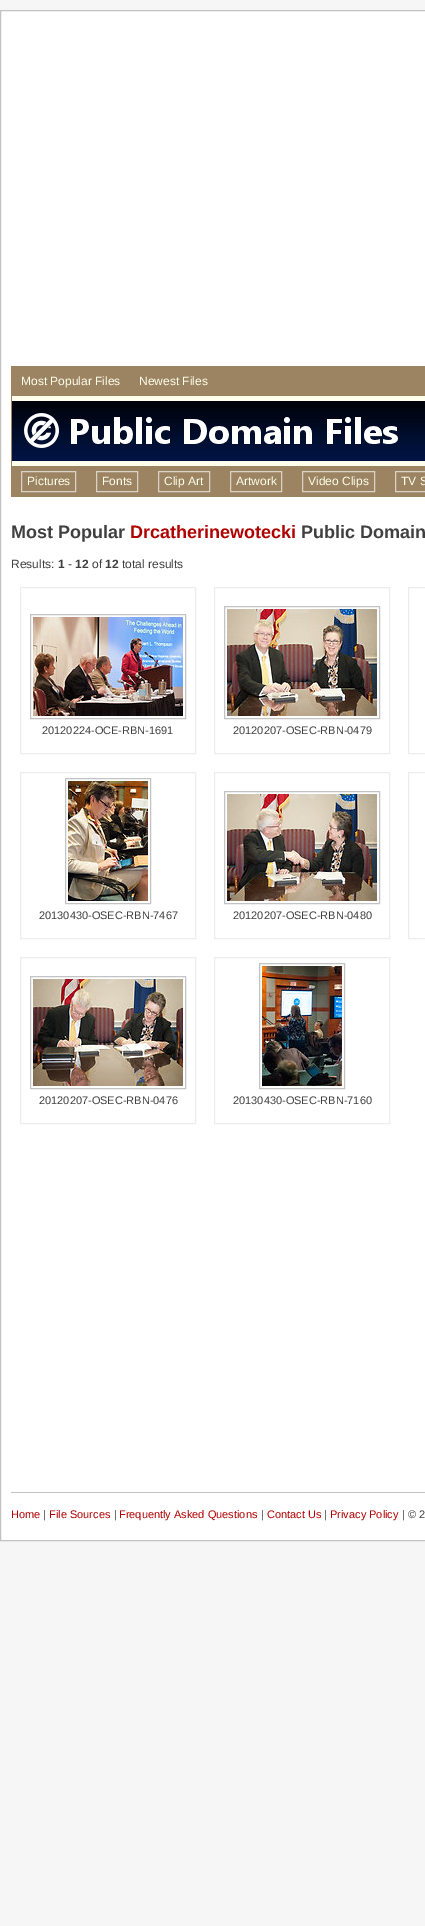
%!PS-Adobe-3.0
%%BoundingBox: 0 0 425 1926
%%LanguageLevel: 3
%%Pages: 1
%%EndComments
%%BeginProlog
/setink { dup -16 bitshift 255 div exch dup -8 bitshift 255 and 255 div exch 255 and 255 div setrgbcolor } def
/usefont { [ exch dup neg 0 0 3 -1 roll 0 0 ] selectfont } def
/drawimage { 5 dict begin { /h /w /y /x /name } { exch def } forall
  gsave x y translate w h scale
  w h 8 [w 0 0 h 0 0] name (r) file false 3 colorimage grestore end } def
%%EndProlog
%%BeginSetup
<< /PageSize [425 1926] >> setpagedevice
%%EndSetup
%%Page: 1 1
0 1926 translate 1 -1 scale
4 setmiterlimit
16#F6F6F6 setink
0 0 425 1926 rectfill
16#FFFFFF setink
0.5 10.5 moveto 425.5 10.5 lineto 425.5 1540.5 lineto 0.5 1540.5 lineto closepath gsave fill grestore
16#C3C3C3 setink
stroke
16#9C8463 setink
11 366 414 30 rectfill
/LiberationSans-Regular 12 usefont
16#FFFFEB setink
21 385 moveto (Most Popular Files) show
139 385 moveto (Newest Files) show
11 396 414 5 rectfill
16#9C8463 setink
11 396 1 65 rectfill
(img1.raw) 12 401 413 60 drawimage
(img2.raw) 24 413 374 35 drawimage
[
    [11 461 414 5 16#FFFFEB]
    [11 461 1 5 16#9C8463]
    [11 466 414 31 16#9C8463]
] { aload pop setink rectfill } forall
16#DAD2C6 setink
21.5 471.5 54 20 rectstroke
16#FFFFEB setink
27 485 moveto (Pictures) show
16#DAD2C6 setink
96.5 471.5 41 20 rectstroke
16#FFFFEB setink
102 485 moveto (Fonts) show
16#DAD2C6 setink
158.5 471.5 51 20 rectstroke
16#FFFFEB setink
164 485 moveto (Clip Art) show
16#DAD2C6 setink
230.5 471.5 51 20 rectstroke
16#FFFFEB setink
236 485 moveto (Artwork) show
16#DAD2C6 setink
302.5 471.5 72 20 rectstroke
16#FFFFEB setink
308 485 moveto (Video Clips) show
16#DAD2C6 setink
395.5 471.5 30 20 rectstroke
16#FFFFEB setink
401 485 moveto (TV S) show
/LiberationSans-Bold 18 usefont
16#404040 setink
11 538 moveto (Most Popular) show
16#B00000 setink
130 538 moveto (Drcatherinewotecki) show
16#404040 setink
301 538 moveto (Public Domain) show
/LiberationSans-Regular 12 usefont
11 568 moveto (Results:) show
/LiberationSans-Bold 12 usefont
58 568 moveto (1) show
/LiberationSans-Regular 12 usefont
68 568 moveto (-) show
/LiberationSans-Bold 12 usefont
75 568 moveto (12) show
/LiberationSans-Regular 12 usefont
92 568 moveto (of) show
/LiberationSans-Bold 12 usefont
105 568 moveto (12) show
/LiberationSans-Regular 12 usefont
122 568 moveto (total results) show
16#EDEDED setink
20.5 587.5 175 166 rectstroke
16#C3C3C3 setink
30.5 614.5 155 104 rectstroke
(img3.raw) 33 617 150 99 drawimage
/LiberationSans-Regular 11 usefont
16#404040 setink
42 734 moveto (20120224-OCE-RBN-1691) show
16#EDEDED setink
214.5 587.5 175 166 rectstroke
16#C3C3C3 setink
224.5 606.5 155 112 rectstroke
(img4.raw) 227 609 150 107 drawimage
16#404040 setink
233 734 moveto (20120207-OSEC-RBN-0479) show
16#EDEDED setink
408.5 587.5 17 166 rectstroke
20.5 772.5 175 166 rectstroke
16#C3C3C3 setink
65.5 778.5 85 125 rectstroke
(img5.raw) 68 781 80 120 drawimage
16#404040 setink
39 919 moveto (20130430-OSEC-RBN-7467) show
16#EDEDED setink
214.5 772.5 175 166 rectstroke
16#C3C3C3 setink
224.5 791.5 155 112 rectstroke
(img6.raw) 227 794 150 107 drawimage
16#404040 setink
233 919 moveto (20120207-OSEC-RBN-0480) show
16#EDEDED setink
408.5 772.5 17 166 rectstroke
20.5 957.5 175 166 rectstroke
16#C3C3C3 setink
30.5 976.5 155 112 rectstroke
(img7.raw) 33 979 150 107 drawimage
16#404040 setink
39 1104 moveto (20120207-OSEC-RBN-0476) show
16#EDEDED setink
214.5 957.5 175 166 rectstroke
16#C3C3C3 setink
259.5 963.5 85 125 rectstroke
(img8.raw) 262 966 80 120 drawimage
16#404040 setink
233 1104 moveto (20130430-OSEC-RBN-7160) show
16#C3C3C3 setink
11 1492 414 1 rectfill
16#B00000 setink
11 1518 moveto (Home) show
16#404040 setink
43 1518 moveto (|) show
16#B00000 setink
49 1518 moveto (File Sources) show
16#404040 setink
114 1518 moveto (|) show
16#B00000 setink
119 1518 moveto (Frequently Asked Questions) show
16#404040 setink
261 1518 moveto (|) show
16#B00000 setink
267 1518 moveto (Contact Us) show
16#404040 setink
324 1518 moveto (|) show
16#B00000 setink
330 1518 moveto (Privacy Policy) show
16#404040 setink
402 1518 moveto (| © 2) show
showpage
%%EOF
